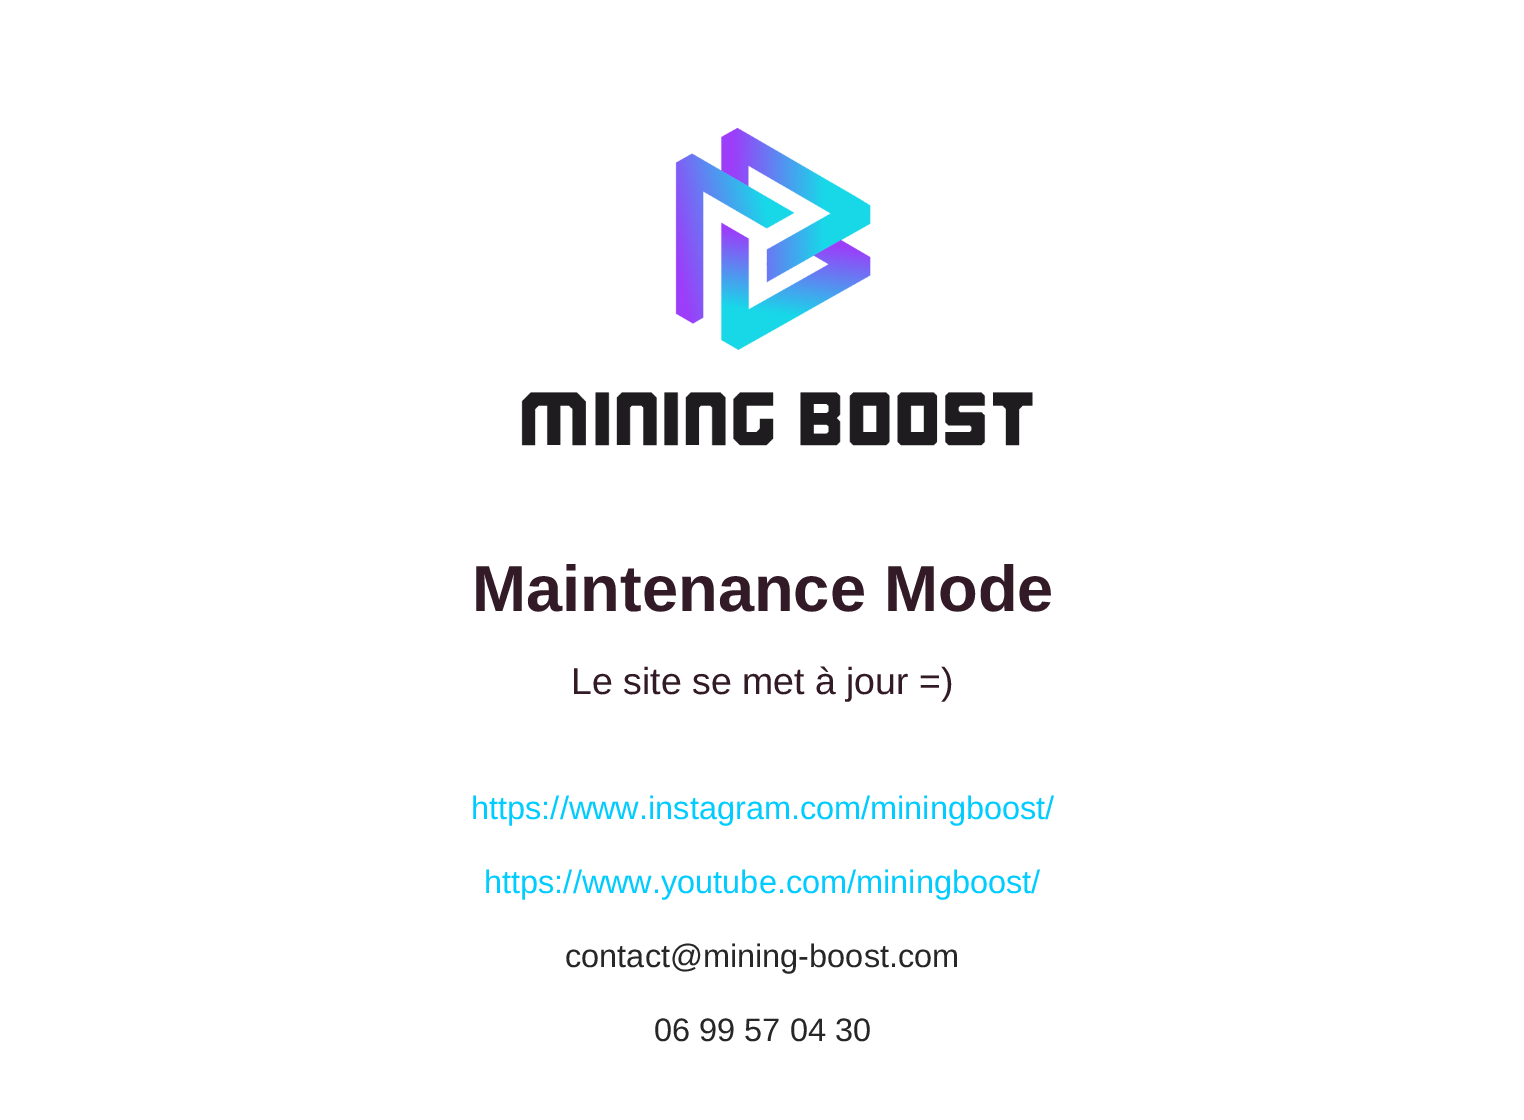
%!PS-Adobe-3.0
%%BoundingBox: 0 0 1524 1120
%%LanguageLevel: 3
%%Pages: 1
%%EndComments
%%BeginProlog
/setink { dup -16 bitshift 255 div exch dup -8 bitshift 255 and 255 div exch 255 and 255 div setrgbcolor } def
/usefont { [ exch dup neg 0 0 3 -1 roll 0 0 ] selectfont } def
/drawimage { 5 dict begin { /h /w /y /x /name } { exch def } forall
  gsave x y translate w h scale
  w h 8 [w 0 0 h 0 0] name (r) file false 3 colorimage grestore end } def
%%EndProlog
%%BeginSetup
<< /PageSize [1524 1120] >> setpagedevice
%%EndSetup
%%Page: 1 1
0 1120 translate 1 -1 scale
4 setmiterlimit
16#FFFFFF setink
0 0 1524 1120 rectfill
(img1.raw) 521 127 512 319 drawimage
/LiberationSans-Bold 65 usefont
16#321B26 setink
472 611 moveto (Maintenance Mode) show
/LiberationSans-Regular 37.5 usefont
571 694 moveto (Le site se met à jour =\)) show
/LiberationSans-Regular 32.5 usefont
16#00CCFF setink
471 819 moveto (https://www.instagram.com/miningboost/) show
484 893 moveto (https://www.youtube.com/miningboost/) show
16#272727 setink
565 967 moveto (contact@mining-boost.com) show
654 1041 moveto (06 99 57 04 30) show
showpage
%%EOF
